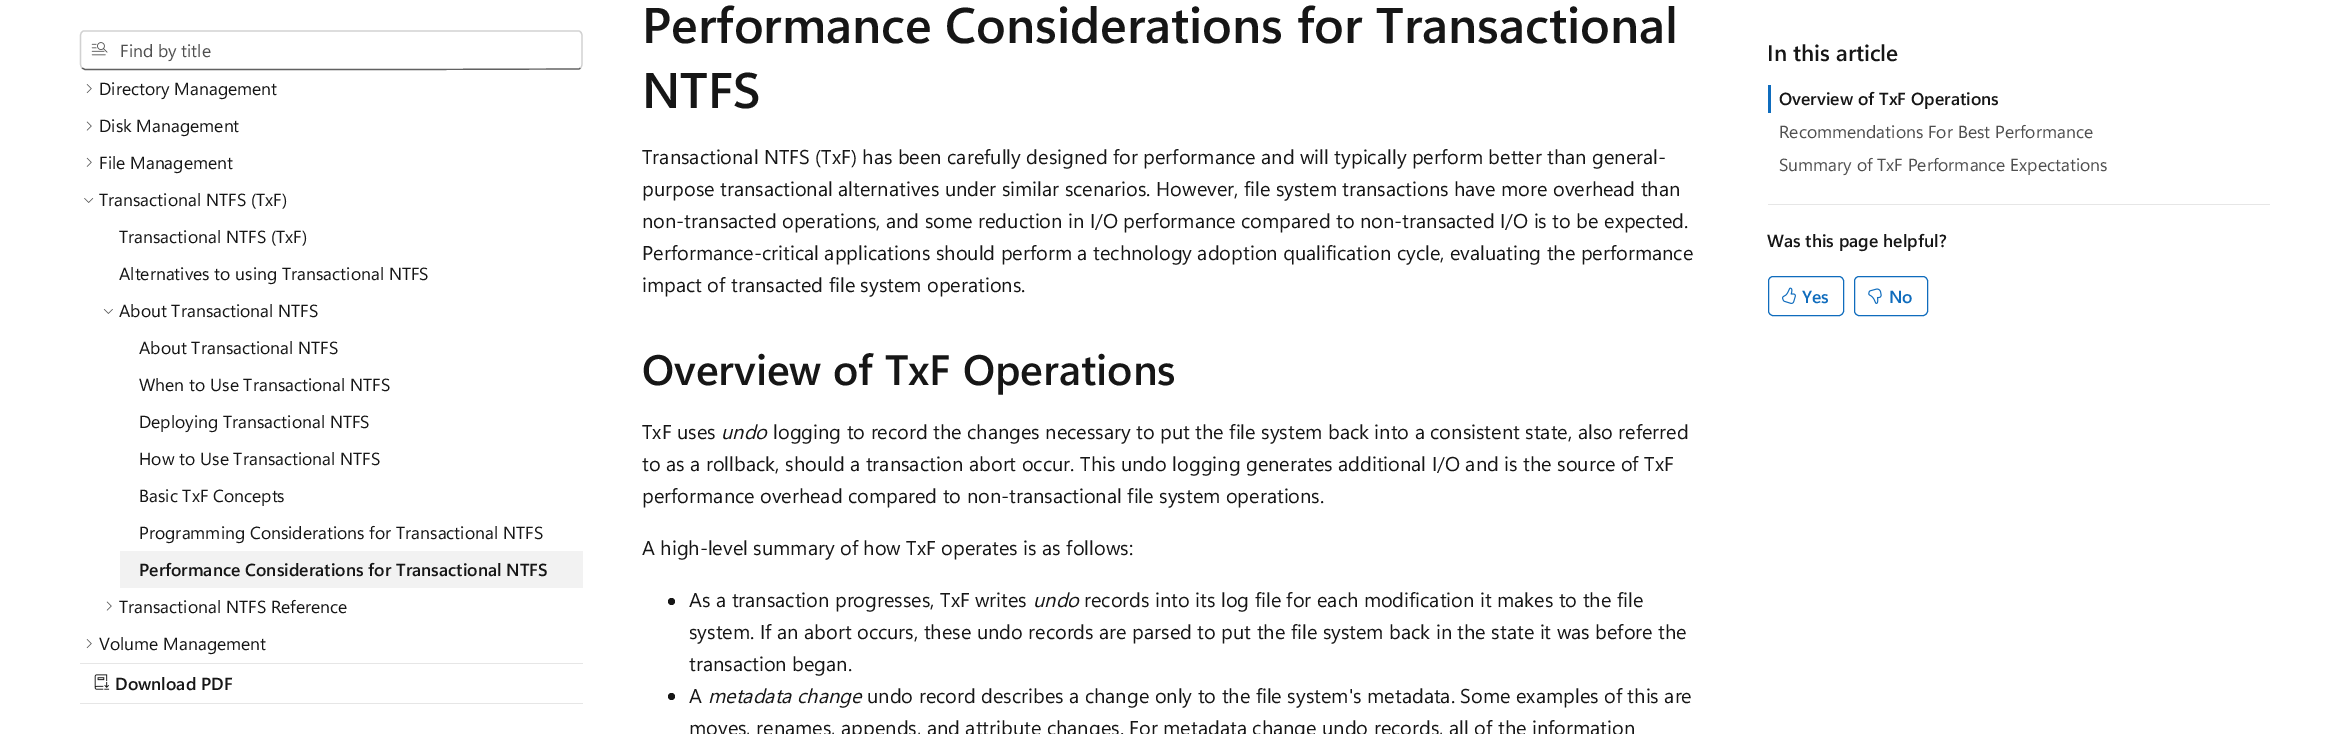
%!PS-Adobe-3.0
%%BoundingBox: 0 0 2348 734
%%LanguageLevel: 3
%%Pages: 1
%%EndComments
%%BeginProlog
/setink { dup -16 bitshift 255 div exch dup -8 bitshift 255 and 255 div exch 255 and 255 div setrgbcolor } def
/usefont { [ exch dup neg 0 0 3 -1 roll 0 0 ] selectfont } def
/disc { newpath 0 360 arc closepath } def
/rrect { 5 dict begin { /r /h /w /y /x } { exch def } forall
  x r add y moveto x w add y 2 copy h add r arct x w add y h add x 1 index r arct
  x y h add x y r arct x y 2 copy exch w add exch r arct closepath end } def
/drawimage { 5 dict begin { /h /w /y /x /name } { exch def } forall
  gsave x y translate w h scale
  w h 8 [w 0 0 h 0 0] name (r) file false 3 colorimage grestore end } def
%%EndProlog
%%BeginSetup
<< /PageSize [2348 734] >> setpagedevice
%%EndSetup
%%Page: 1 1
0 734 translate 1 -1 scale
4 setmiterlimit
16#FFFFFF setink
0 0 2348 734 rectfill
16#616161 setink
1.2 setlinewidth
580.5 68 moveto 579 69 lineto 413.5 69.5 lineto 85 69.5 lineto 82 68 lineto stroke
16#D1D1D1 setink
82 68 moveto 80 66 80.5 62.5 80.5 60 curveto 80.5 40 lineto 80.5 37 79.5 32.5 83.5 31 curveto 579 31 lineto 583 32.5 582 37 582 40 curveto 582 60 lineto 582 62.5 582.5 66 580.5 68 curveto stroke
(img1.raw) 91 42 17 14 drawimage
/SegoeUI-Regular 17.5 usefont
16#505050 setink
120 57 moveto (Find by title) show
(img2.raw) 86 84 6 10 drawimage
16#161616 setink
99 95 moveto (Directory Management) show
(img3.raw) 86 121 6 10 drawimage
99 132 moveto (Disk Management) show
(img4.raw) 86 157 6 10 drawimage
99 169 moveto (File Management) show
(img5.raw) 84 198 10 5 drawimage
[
    [(Transactional NTFS \(TxF\)) 99 206]
    [(Transactional NTFS \(TxF\)) 119 243]
    [(Alternatives to using Transactional NTFS) 119 280]
] { aload pop moveto show } forall
(img6.raw) 103 309 10 5 drawimage
[
    [(About Transactional NTFS) 119 317]
    [(About Transactional NTFS) 139 354]
    [(When to Use Transactional NTFS) 139 391]
    [(Deploying Transactional NTFS) 139 428]
    [(How to Use Transactional NTFS) 139 465]
    [(Basic TxF Concepts) 139 502]
    [(Programming Considerations for Transactional NTFS) 139 539]
] { aload pop moveto show } forall
16#F2F2F2 setink
120 551 463 37 rectfill
/SegoeUI-SemiBold 17.5 usefont
16#161616 setink
139 576 moveto (Performance Considerations for Transactional NTFS) show
(img3.raw) 106 601 6 10 drawimage
/SegoeUI-Regular 17.5 usefont
119 613 moveto (Transactional NTFS Reference) show
(img2.raw) 86 639 6 10 drawimage
99 650 moveto (Volume Management) show
16#E6E6E6 setink
80 663 503 1 rectfill
80 703 503 1 rectfill
(img7.raw) 94 674 16 16 drawimage
/SegoeUI-SemiBold 17.5 usefont
16#161616 setink
115 690 moveto (Download PDF) show
/SegoeUI-SemiBold 50 usefont
642 43 moveto (Performance Considerations for Transactional) show
642 108 moveto (NTFS) show
/SegoeUI-Regular 20 usefont
[
    [(Transactional NTFS \(TxF\) has been carefully designed for performance and will typically perform better than general-) 642 164]
    [(purpose transactional alternatives under similar scenarios. However, file system transactions have more overhead than) 642 196]
    [(non-transacted operations, and some reduction in I/O performance compared to non-transacted I/O is to be expected.) 642 228]
    [(Performance-critical applications should perform a technology adoption qualification cycle, evaluating the performance) 642 260]
    [(impact of transacted file system operations.) 642 292]
] { aload pop moveto show } forall
/SegoeUI-SemiBold 42.5 usefont
642 385 moveto (Overview of TxF Operations) show
/SegoeUI-Regular 20 usefont
642 439 moveto (TxF uses) show
/SegoeUI-Italic 20 usefont
721 439 moveto (undo) show
/SegoeUI-Regular 20 usefont
[
    [(logging to record the changes necessary to put the file system back into a consistent state, also referred) 773 439]
    [(to as a rollback, should a transaction abort occur. This undo logging generates additional I/O and is the source of TxF) 642 471]
    [(performance overhead compared to non-transactional file system operations.) 642 503]
    [(A high-level summary of how TxF operates is as follows:) 642 555]
] { aload pop moveto show } forall
671.5 601.5 3.5 disc fill
689 607 moveto (As a transaction progresses, TxF writes) show
/SegoeUI-Italic 20 usefont
1033 607 moveto (undo) show
/SegoeUI-Regular 20 usefont
[
    [(records into its log file for each modification it makes to the file) 1084 607]
    [(system. If an abort occurs, these undo records are parsed to put the file system back in the state it was before the) 689 639]
    [(transaction began.) 689 671]
] { aload pop moveto show } forall
671.5 696.5 3.5 disc fill
689 703 moveto (A) show
/SegoeUI-Italic 20 usefont
708 703 moveto (metadata change) show
/SegoeUI-Regular 20 usefont
867 703 moveto (undo record describes a change only to the file system's metadata. Some examples of this are) show
689 735 moveto (moves, renames, appends, and attribute changes. For metadata change undo records, all of the information) show
16#E6E6E6 setink
1768 204 502 1 rectfill
/SegoeUI-SemiBold 22.5 usefont
16#161616 setink
1767 61 moveto (In this article) show
16#0F6CBD setink
1768 85 3 28 rectfill
/SegoeUI-SemiBold 17.5 usefont
16#161616 setink
1779 105 moveto (Overview of TxF Operations) show
/SegoeUI-Regular 17.5 usefont
16#505050 setink
1779 138 moveto (Recommendations For Best Performance) show
1779 171 moveto (Summary of TxF Performance Expectations) show
/SegoeUI-SemiBold 17.5 usefont
16#161616 setink
1767 247 moveto (Was this page helpful?) show
16#0F6CBD setink
1 setlinewidth
1768.5 276.5 75 39 4.5 rrect stroke
(img8.raw) 1782 287 14 17 drawimage
1802 303 moveto (Yes) show
1854.5 276.5 73 39 4.5 rrect stroke
(img9.raw) 1868 288 14 16 drawimage
1889 303 moveto (No) show
showpage
%%EOF
